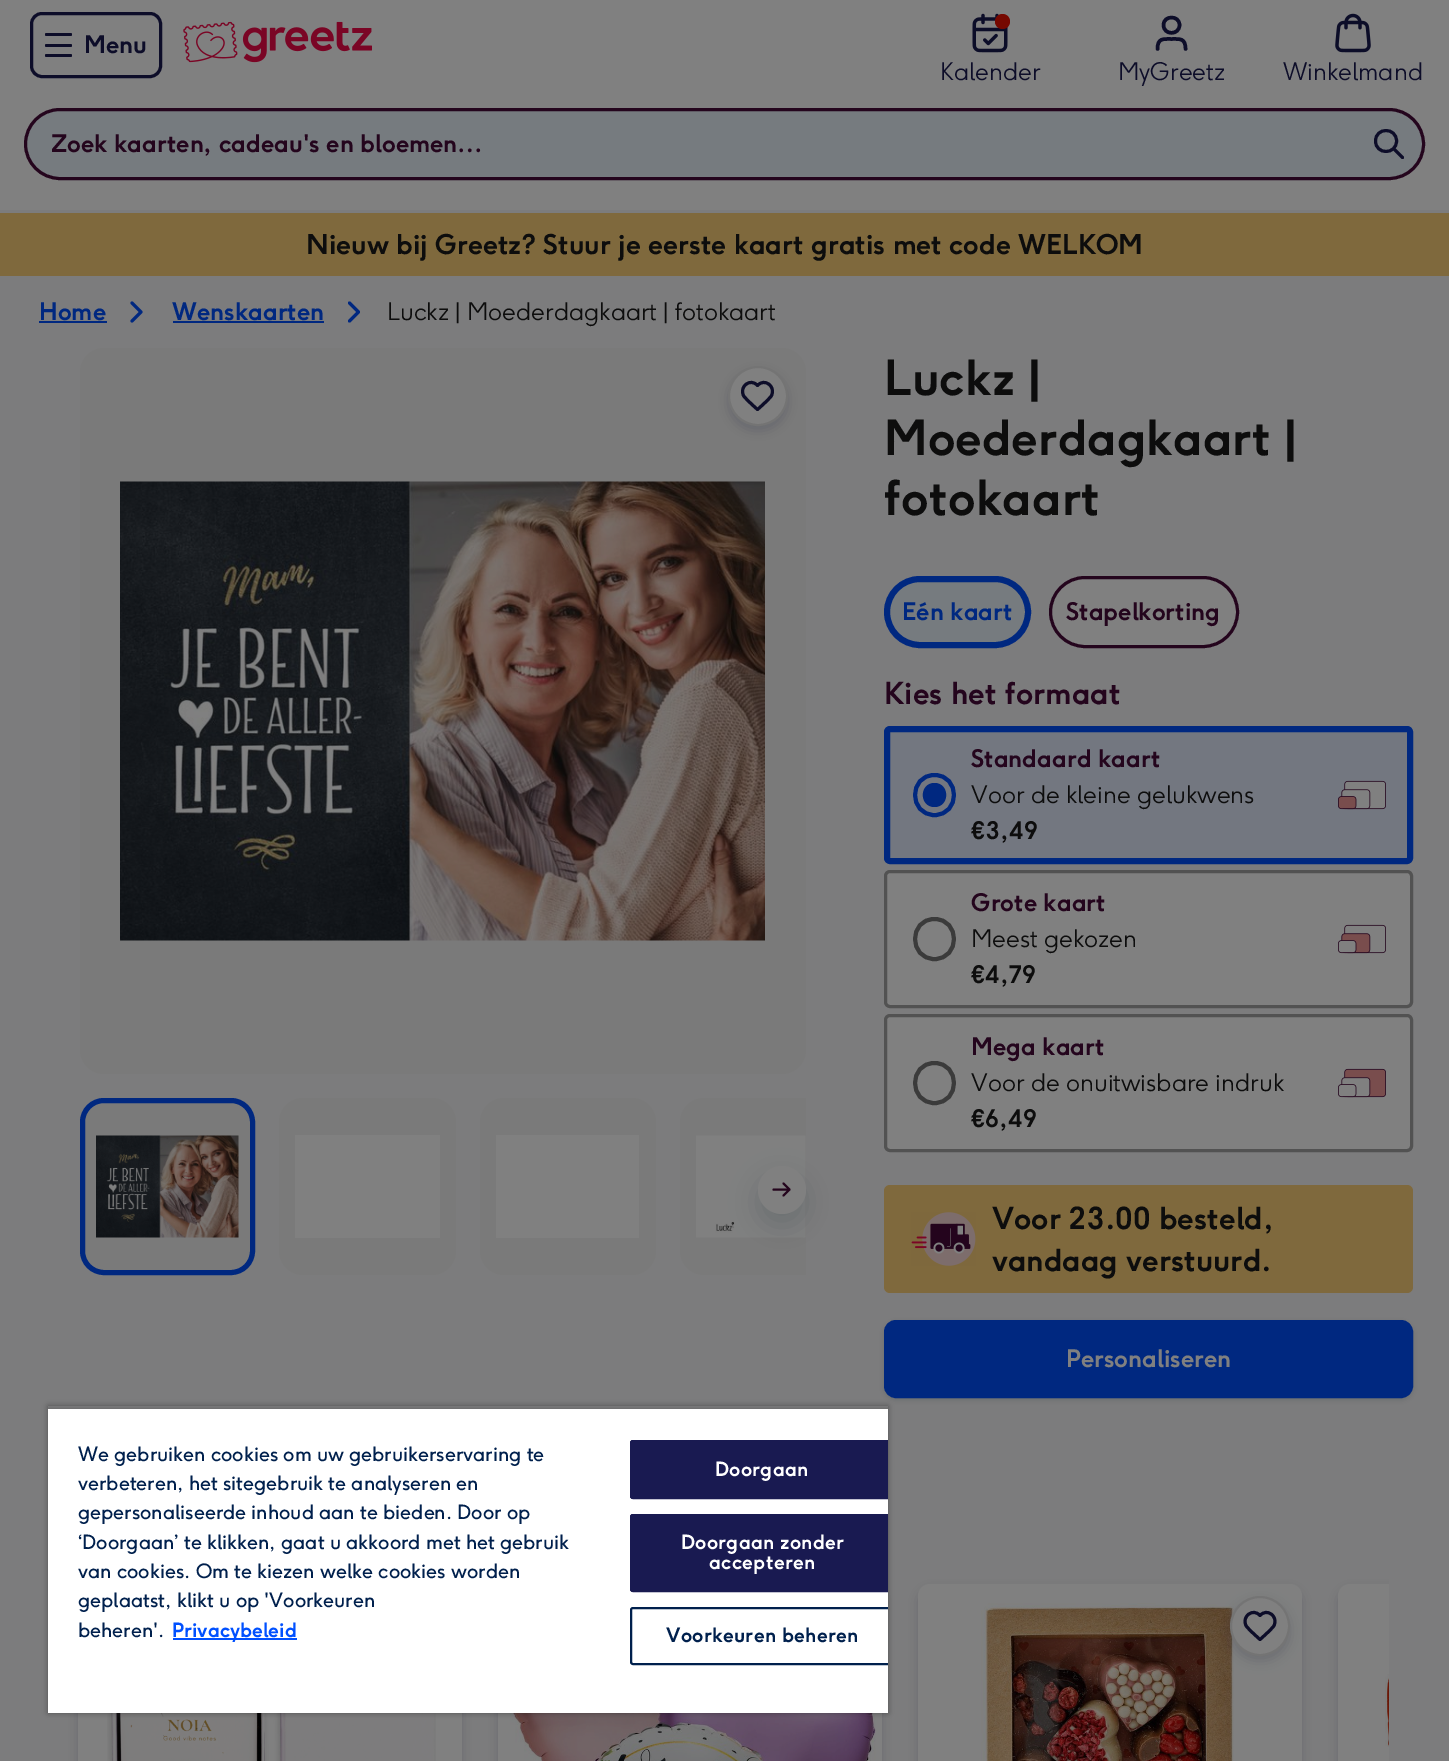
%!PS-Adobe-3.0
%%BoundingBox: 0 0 1449 1761
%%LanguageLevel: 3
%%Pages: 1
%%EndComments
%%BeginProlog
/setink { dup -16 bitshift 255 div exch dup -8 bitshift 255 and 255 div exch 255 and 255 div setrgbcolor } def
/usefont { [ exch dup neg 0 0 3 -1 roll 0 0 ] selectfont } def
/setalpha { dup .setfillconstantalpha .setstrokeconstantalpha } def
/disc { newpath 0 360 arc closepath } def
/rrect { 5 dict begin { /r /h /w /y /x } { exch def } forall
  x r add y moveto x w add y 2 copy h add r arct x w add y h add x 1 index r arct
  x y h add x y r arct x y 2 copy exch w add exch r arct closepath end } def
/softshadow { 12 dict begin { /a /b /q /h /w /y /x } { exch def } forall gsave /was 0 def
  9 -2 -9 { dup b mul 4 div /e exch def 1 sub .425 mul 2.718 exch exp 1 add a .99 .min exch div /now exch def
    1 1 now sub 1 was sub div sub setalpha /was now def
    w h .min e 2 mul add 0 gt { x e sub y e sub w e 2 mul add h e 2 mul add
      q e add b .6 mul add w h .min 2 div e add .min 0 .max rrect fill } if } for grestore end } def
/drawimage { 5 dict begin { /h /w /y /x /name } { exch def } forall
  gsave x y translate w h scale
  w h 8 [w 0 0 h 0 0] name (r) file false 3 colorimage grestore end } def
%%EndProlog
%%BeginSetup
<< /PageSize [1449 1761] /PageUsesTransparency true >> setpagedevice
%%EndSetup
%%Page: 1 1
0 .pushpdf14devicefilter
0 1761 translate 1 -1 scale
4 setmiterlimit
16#7C7C7D setink
0 0 1449 1761 rectfill
16#808080 setink
0 0 1449 210 rectfill
16#0D0D29 setink
3 setlinewidth
31.5 13.5 129 63 10.5 rrect stroke
45 33 27 3 1.5 rrect fill
45 44 27 3 1.5 rrect fill
45 54 27 3 1.5 rrect fill
/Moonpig-Bold 24 usefont
84 53 moveto (Menu) show
(img1.raw) 183 21 189 42 drawimage
(img2.raw) 972 13 36 40 drawimage
16#760800 setink
1002.5 21.5 7.5 disc fill
/Moonpig-Light 24 usefont
16#0D0D29 setink
940 80 moveto (Kalender) show
3.5 setlinewidth
1 setlinecap
1 setlinejoin
1185.5 49 moveto 1185.5 38 1180 39 1171.5 39 curveto 1163 39 1157.5 38 1157.5 49 curveto 1179.5 25 moveto 1179.5 35.5 1163.5 35.5 1163.5 25 curveto 1163.5 15 1179.5 15 1179.5 25 curveto stroke
1118 80 moveto (MyGreetz) show
(img3.raw) 1335 13 36 40 drawimage
1283 80 moveto (Winkelmand) show
16#767B7F setink
25.5 109.5 1398 69 34.5 rrect gsave fill grestore
16#24051D setink
3 setlinewidth
0 setlinecap
0 setlinejoin
stroke
/Moonpig-Bold 24 usefont
51 152 moveto (Zoek kaarten, cadeau's en bloemen…) show
16#0D0D29 setink
1 setlinecap
1 setlinejoin
1402.5 157.5 moveto 1393.5 148.5 lineto 1396.5 141 moveto 1396.5 155 1375.5 155 1375.5 141 curveto 1375.5 127 1396.5 127 1396.5 141 curveto stroke
16#7F693D setink
0 213 1449 63 rectfill
/Moonpig-Bold 27 usefont
16#0D0D0D setink
306 254 moveto (Nieuw bij Greetz? Stuur je eerste kaart gratis met code WELKOM) show
/Moonpig-Bold 24 usefont
16#002880 setink
39 320 moveto (Home) show
39 321 68 2 rectfill
132 321 moveto 141 312 lineto 132 303 lineto stroke
172 320 moveto (Wenskaarten) show
173 321 151 2 rectfill
349.5 321 moveto 358.5 312 lineto 349.5 303 lineto stroke
/Moonpig-Light 24 usefont
16#0D0D0D setink
387 320 moveto (Luckz | Moederdagkaart | fotokaart) show
16#7A7A7A setink
80 348 726 726 24 rrect fill
(img4.raw) 120 481 645 460 drawimage
16#000227 setink
728 371 60 60 30 6 0.15 softshadow
16#808080 setink
758 396 29 disc gsave fill grestore
16#747474 setink
2 setlinewidth
0 setlinecap
0 setlinejoin
stroke
16#0D0D29 setink
3 setlinewidth
1 setlinecap
1 setlinejoin
757.5 385.5 moveto 750.5 377.5 739 386.5 743.5 395.5 curveto 745.5 399 749.5 402 752.5 405 curveto 757.5 409.5 lineto 762.5 405 lineto 765.5 402 769.5 399 771.5 395.5 curveto 776 386.5 764.5 377.5 757.5 385.5 curveto stroke
16#7A7A7A setink
82.5 1100.5 170 172 21.5 rrect gsave fill grestore
16#002880 setink
5 setlinewidth
0 setlinecap
0 setlinejoin
stroke
(img5.raw) 96 1135 143 103 drawimage
16#7A7A7A setink
279 1098 177 177 24 rrect fill
16#808080 setink
295 1135 145 103 rectfill
16#7A7A7A setink
480 1098 176 177 24 rrect fill
16#808080 setink
496 1135 143 103 rectfill
16#7A7A7A setink
704 1098 moveto 806 1098 lineto 806 1275 lineto 704 1275 lineto 690.5 1275 680 1264.5 680 1251 curveto 680 1122 lineto 680 1108.5 690.5 1098 704 1098 curveto closepath fill
(img6.raw) 696 1135 110 103 drawimage
16#001027 setink
758 1178 48 48 24 13.5 0.15 softshadow
16#808080 setink
782 1190 24 disc fill
16#24051D setink
2 setlinewidth
1 setlinecap
1 setlinejoin
773.5 1189.5 moveto 789.5 1189.5 lineto 789.5 1189.5 moveto 783.5 1183.5 lineto 789.5 1189.5 moveto 783.5 1195.5 lineto stroke
/Moonpig-Bold 48 usefont
16#0D0D0D setink
[
    [(Luckz |) 884 395]
    [(Moederdagkaart |) 884 455]
    [(fotokaart) 884 515]
] { aload pop moveto show } forall
16#767B7F setink
887 579 141 66 33 rrect gsave fill grestore
16#002880 setink
6 setlinewidth
0 setlinecap
0 setlinejoin
stroke
/Moonpig-Bold 24 usefont
902 620 moveto (Eén kaart) show
16#808080 setink
1050.5 577.5 187 69 34.5 rrect gsave fill grestore
16#24051D setink
3 setlinewidth
stroke
1066 620 moveto (Stapelkorting) show
/Moonpig-Bold 30 usefont
884 704 moveto (Kies het formaat) show
16#737780 setink
887 729 523 132 3 rrect gsave fill grestore
16#002880 setink
6 setlinewidth
stroke
4 setlinewidth
1 setlinecap
1 setlinejoin
934.5 815 moveto 960.5 815 960.5 775 934.5 775 curveto 908.5 775 908.5 815 934.5 815 curveto stroke
934.5 807 moveto 950 807 950 783 934.5 783 curveto 919 783 919 807 934.5 807 curveto fill
/Moonpig-Bold 24 usefont
16#24051D setink
971 767 moveto (Standaard kaart) show
/Moonpig-Light 24 usefont
16#0D0D0D setink
971 803 moveto (Voor de kleine gelukwens) show
/Moonpig-Bold 24 usefont
971 839 moveto (€3,49) show
(img7.raw) 1338 780 48 30 drawimage
16#808080 setink
885.5 871.5 526 135 4.5 rrect gsave fill grestore
16#525252 setink
3 setlinewidth
0 setlinecap
0 setlinejoin
stroke
16#3B3B3B setink
4 setlinewidth
1 setlinecap
1 setlinejoin
934.5 959 moveto 960.5 959 960.5 919 934.5 919 curveto 908.5 919 908.5 959 934.5 959 curveto stroke
16#24051D setink
971 911 moveto (Grote kaart) show
/Moonpig-Light 24 usefont
16#0D0D0D setink
971 947 moveto (Meest gekozen) show
/Moonpig-Bold 24 usefont
971 983 moveto (€4,79) show
(img8.raw) 1338 924 48 30 drawimage
16#808080 setink
885.5 1015.5 526 135 4.5 rrect gsave fill grestore
16#525252 setink
3 setlinewidth
0 setlinecap
0 setlinejoin
stroke
16#3B3B3B setink
4 setlinewidth
1 setlinecap
1 setlinejoin
934.5 1103 moveto 960.5 1103 960.5 1063 934.5 1063 curveto 908.5 1063 908.5 1103 934.5 1103 curveto stroke
16#24051D setink
971 1055 moveto (Mega kaart) show
/Moonpig-Light 24 usefont
16#0D0D0D setink
971 1091 moveto (Voor de onuitwisbare indruk) show
/Moonpig-Bold 24 usefont
971 1127 moveto (€6,49) show
(img9.raw) 1338 1068 48 30 drawimage
16#7F693D setink
884 1185 529 108 6 rrect fill
(img10.raw) 911 1212 65 54 drawimage
/Moonpig-Bold 30 usefont
16#0D0D0D setink
992 1229 moveto (Voor 23.00 besteld,) show
992 1271 moveto (vandaag verstuurd.) show
16#001027 setink
884 1322 529 78 12 3 0.15 softshadow
16#002880 setink
885.5 1321.5 526 75 10.5 rrect gsave fill grestore
3 setlinewidth
0 setlinecap
0 setlinejoin
stroke
/Moonpig-Bold 24 usefont
16#808080 setink
1066 1367 moveto (Personaliseren) show
16#000227 setink
78 1589 384 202 12 6 0.15 softshadow
16#808080 setink
78 1713 384 48 rectfill
(img11.raw) 107 1713 329 48 drawimage
16#000227 setink
498 1589 384 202 12 6 0.15 softshadow
16#808080 setink
498 1713 384 48 rectfill
(img12.raw) 509 1713 367 48 drawimage
16#000227 setink
918 1589 384 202 12 6 0.15 softshadow
16#808080 setink
918 1584 384 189 12 rrect fill
(img13.raw) 981 1603 253 158 drawimage
16#000227 setink
1230 1601 60 60 30 6 0.15 softshadow
16#808080 setink
1260 1626 29 disc gsave fill grestore
16#747474 setink
2 setlinewidth
stroke
16#0D0D29 setink
3 setlinewidth
1 setlinecap
1 setlinejoin
1260 1615.5 moveto 1253 1607.5 1241.5 1616.5 1246 1625.5 curveto 1248 1629 1252 1632 1255 1635 curveto 1260 1639.5 lineto 1265 1635 lineto 1268 1632 1272 1629 1274 1625.5 curveto 1278.5 1616.5 1267 1607.5 1260 1615.5 curveto stroke
gsave
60 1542 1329 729 rectclip
16#000227 setink
1338 1589 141 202 12 6 0.15 softshadow
grestore
16#808080 setink
1350 1584 moveto 1389 1584 lineto 1389 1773 lineto 1350 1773 lineto 1343.5 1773 1338 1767.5 1338 1761 curveto 1338 1596 lineto 1338 1589.5 1343.5 1584 1350 1584 curveto closepath fill
(img14.raw) 1385 1674 4 73 drawimage
gsave
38 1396 moveto 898 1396 lineto 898 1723 lineto 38 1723 lineto closepath 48 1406 moveto 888 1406 lineto 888 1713 lineto 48 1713 lineto closepath eoclip newpath
16#000000 setink
48 1406 840 307 0 3 0.35 softshadow
grestore
gsave
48 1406 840 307 rectclip
16#000000 setink
48 1409 840 304 0 3 0.2 softshadow
grestore
16#FFFFFF setink
48 1409 840 304 rectfill
/Moonpig-Regular 19.5 usefont
16#00204D setink
[
    [(We gebruiken cookies om uw gebruikerservaring te) 78 1461]
    [(verbeteren, het sitegebruik te analyseren en) 78 1490]
    [(gepersonaliseerde inhoud aan te bieden. Door op) 78 1519]
    [(‘Doorgaan’ te klikken, gaat u akkoord met het gebruik) 78 1549]
    [(van cookies. Om te kiezen welke cookies worden) 78 1578]
    [(geplaatst, klikt u op 'Voorkeuren) 78 1607]
    [(beheren'.) 78 1637]
] { aload pop moveto show } forall
16#0050FF setink
173 1638 124 2 rectfill
/Moonpig-Bold 19.5 usefont
172 1637 moveto (Privacybeleid) show
16#191A51 setink
633 1440 moveto 888 1440 lineto 888 1499 lineto 633 1499 lineto 631.5 1499 630 1497.5 630 1496 curveto 630 1443 lineto 630 1441.5 631.5 1440 633 1440 curveto closepath fill
gsave
48 1406 840 307 rectclip
2 setlinewidth
0 setlinecap
0 setlinejoin
631 1441 261 57 2 rrect stroke
grestore
16#FFFFFF setink
715 1476 moveto 0.25 0 (Doorgaan) ashow
16#191A51 setink
633 1514 moveto 888 1514 lineto 888 1592 lineto 633 1592 lineto 631.5 1592 630 1590.5 630 1589 curveto 630 1517 lineto 630 1515.5 631.5 1514 633 1514 curveto closepath fill
gsave
48 1406 840 307 rectclip
2 setlinewidth
0 setlinecap
0 setlinejoin
631 1515 261 76 2 rrect stroke
grestore
16#FFFFFF setink
681 1549 moveto 0.25 0 (Doorgaan zonder) ashow
709 1569 moveto 0.25 0 (accepteren) ashow
gsave
48 1406 840 307 rectclip
16#00204D setink
2 setlinewidth
0 setlinecap
0 setlinejoin
631 1608 261 56 2 rrect stroke
grestore
16#00204D setink
666 1642 moveto 0.25 0 (Voorkeuren beheren) ashow
.poppdf14devicefilter showpage
%%EOF
